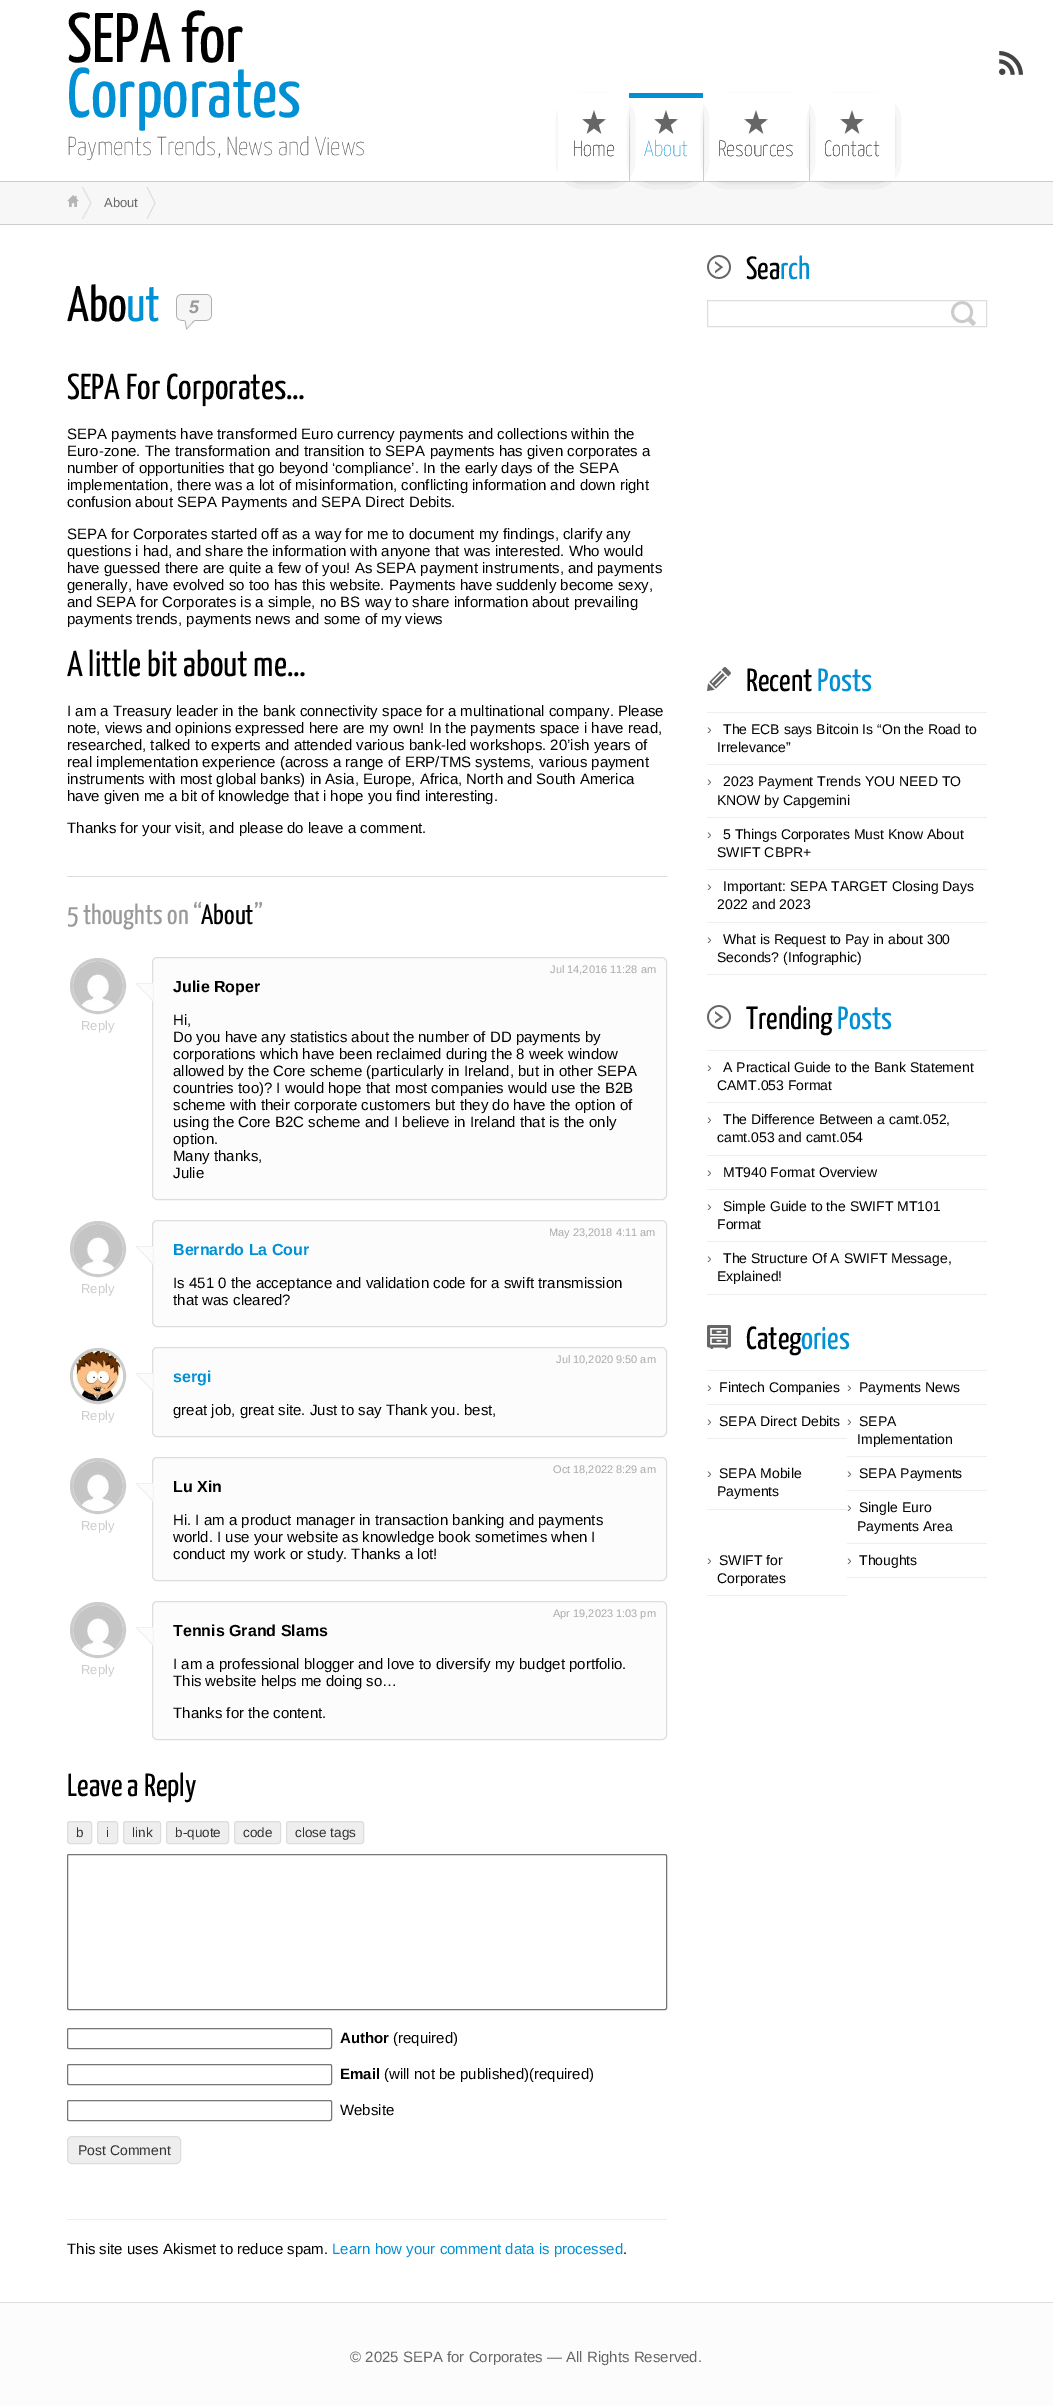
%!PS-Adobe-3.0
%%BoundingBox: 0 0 1053 2406
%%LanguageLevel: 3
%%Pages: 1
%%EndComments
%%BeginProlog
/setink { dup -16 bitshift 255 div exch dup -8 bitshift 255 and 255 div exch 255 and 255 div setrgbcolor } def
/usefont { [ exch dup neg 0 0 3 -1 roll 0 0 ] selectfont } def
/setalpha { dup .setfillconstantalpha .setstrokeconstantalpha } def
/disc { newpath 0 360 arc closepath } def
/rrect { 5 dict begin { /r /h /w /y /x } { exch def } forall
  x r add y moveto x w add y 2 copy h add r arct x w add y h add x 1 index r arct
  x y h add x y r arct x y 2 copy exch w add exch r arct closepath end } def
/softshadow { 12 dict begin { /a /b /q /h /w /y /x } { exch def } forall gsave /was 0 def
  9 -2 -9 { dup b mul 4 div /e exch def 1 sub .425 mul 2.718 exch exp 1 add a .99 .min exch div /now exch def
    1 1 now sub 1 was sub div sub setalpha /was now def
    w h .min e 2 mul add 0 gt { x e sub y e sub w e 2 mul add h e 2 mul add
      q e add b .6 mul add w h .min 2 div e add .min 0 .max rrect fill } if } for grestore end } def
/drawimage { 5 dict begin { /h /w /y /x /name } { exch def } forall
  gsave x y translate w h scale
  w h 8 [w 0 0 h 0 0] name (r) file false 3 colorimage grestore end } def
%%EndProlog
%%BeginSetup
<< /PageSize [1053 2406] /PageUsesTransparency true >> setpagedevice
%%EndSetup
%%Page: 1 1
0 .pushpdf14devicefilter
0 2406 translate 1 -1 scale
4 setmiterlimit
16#FFFFFF setink
0 0 1053 2406 rectfill
/YanoneKaffeesatz-Regular 70 usefont
16#000000 setink
67 62 moveto (SEPA for) show
16#0090D3 setink
67 117 moveto (Corporates) show
/YanoneKaffeesatz-ExtraLight 26 usefont
16#4F4F4F setink
67 155 moveto (Payments Trends, News and Views) show
16#F7F7F7 setink
0 182 1053 42 rectfill
16#CCCCCC setink
0 181 1053 1 rectfill
gsave
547 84 moveto 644 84 lineto 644 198 lineto 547 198 lineto closepath 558 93 moveto 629 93 lineto 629 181 lineto 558 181 lineto closepath eoclip newpath
16#000000 setink
578 115 35 52 0 10 1 softshadow
grestore
(img1.raw) 582 110 24 24 drawimage
/YanoneKaffeesatz-ExtraLight 22 usefont
16#000000 setink
573 156 moveto (Home) show
gsave
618 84 moveto 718 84 lineto 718 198 lineto 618 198 lineto closepath 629 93 moveto 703 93 lineto 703 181 lineto 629 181 lineto closepath eoclip newpath
649 115 38 52 0 10 1 softshadow
grestore
(img2.raw) 629 105 1 76 drawimage
16#0090D3 setink
629 93 74 5 rectfill
(img1.raw) 654 110 24 24 drawimage
644 156 moveto (About) show
gsave
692 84 moveto 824 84 lineto 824 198 lineto 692 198 lineto closepath 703 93 moveto 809 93 lineto 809 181 lineto 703 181 lineto closepath eoclip newpath
16#000000 setink
723 115 70 52 0 10 1 softshadow
grestore
(img2.raw) 703 105 1 76 drawimage
(img1.raw) 744 110 24 24 drawimage
16#000000 setink
718 156 moveto (Resources) show
gsave
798 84 moveto 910 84 lineto 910 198 lineto 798 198 lineto closepath 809 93 moveto 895 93 lineto 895 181 lineto 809 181 lineto closepath eoclip newpath
829 115 50 52 0 10 1 softshadow
grestore
(img2.raw) 809 105 1 76 drawimage
(img1.raw) 840 110 24 24 drawimage
824 156 moveto (Contact) show
(img3.raw) 999 51 24 24 drawimage
16#CCCCCC setink
0 224 1053 1 rectfill
(img4.raw) 67 195 12 12 drawimage
(img5.raw) 81 187 11 32 drawimage
/LiberationSans-Regular 13 usefont
16#666666 setink
104 207 moveto (About) show
(img6.raw) 146 187 10 32 drawimage
/YanoneKaffeesatz-Regular 50 usefont
16#000000 setink
67 321 moveto (Abo) show
16#0090D3 setink
126 321 moveto (ut) show
(img7.raw) 176 294 36 36 drawimage
/LiberationSans-BoldItalic 18 usefont
16#999999 setink
189 313 moveto (5) show
/YanoneKaffeesatz-Regular 36 usefont
16#000000 setink
67 399 moveto (SEPA For Corporates…) show
/LiberationSans-Regular 15 usefont
[
    [(SEPA payments have transformed Euro currency payments and collections within the) 67 439]
    [(Euro-zone. The transformation and transition to SEPA payments has given corporates a) 67 456]
    [(number of opportunities that go beyond ‘compliance’. In the early days of the SEPA) 67 473]
    [(implementation, there was a lot of misinformation, conflicting information and down right) 67 490]
    [(confusion about SEPA Payments and SEPA Direct Debits.) 67 507]
    [(SEPA for Corporates started off as a way for me to document my findings, clarify any) 67 539]
    [(questions i had, and share the information with anyone that was interested. Who would) 67 556]
    [(have guessed there are quite a few of you! As SEPA payment instruments, and payments) 67 573]
    [(generally, have evolved so too has this website. Payments have suddenly become sexy,) 67 590]
    [(and SEPA for Corporates is a simple, no BS way to share information about prevailing) 67 607]
    [(payments trends, payments news and some of my views) 67 624]
] { aload pop moveto show } forall
/YanoneKaffeesatz-Regular 36 usefont
67 676 moveto (A little bit about me…) show
/LiberationSans-Regular 15 usefont
[
    [(I am a Treasury leader in the bank connectivity space for a multinational company. Please) 67 716]
    [(note, views and opinions expressed here are my own! In the payments space i have read,) 67 733]
    [(researched, talked to experts and attended various bank-led workshops. 20’ish years of) 67 750]
    [(real implementation experience \(across a range of ERP/TMS systems, various payment) 67 767]
    [(instruments with most global banks\) in Asia, Europe, Africa, North and South America) 67 784]
    [(have given me a bit of knowledge that i hope you find interesting.) 67 801]
    [(Thanks for your visit, and please do leave a comment.) 67 833]
] { aload pop moveto show } forall
16#DDDDDD setink
67 876 600 1 rectfill
/YanoneKaffeesatz-Regular 28 usefont
16#999999 setink
67 924 moveto (5 thoughts on “) show
16#000000 setink
201 924 moveto (About) show
16#999999 setink
254 924 moveto (”) show
16#FCFCFC setink
152.5 957.5 514 242 4.5 rrect gsave fill grestore
16#DDDDDD setink
stroke
16#CCCCCC setink
3 setlinewidth
98 986 26.5 disc stroke
(img8.raw) 73 961 50 50 drawimage
/LiberationSans-Regular 11 usefont
16#AAAAAA setink
550 973 moveto (Jul 14,2016 11:28 am) show
(img9.raw) 136 983 17 19 drawimage
/LiberationSans-Bold 16 usefont
16#000000 setink
173 992 moveto (Julie Roper) show
/LiberationSans-Regular 13 usefont
16#CCCCCC setink
81 1030 moveto (Reply) show
/LiberationSans-Regular 15 usefont
16#000000 setink
[
    [(Hi,) 173 1025]
    [(Do you have any statistics about the number of DD payments by) 173 1042]
    [(corporations which have been reclaimed during the 8 week window) 173 1059]
    [(allowed by the Core scheme \(particularly in Ireland, but in other SEPA) 173 1076]
    [(countries too\)? I would hope that most companies would use the B2B) 173 1093]
    [(scheme with their corporate customers but they do have the option of) 173 1110]
    [(using the Core B2C scheme and I believe in Ireland that is the only) 173 1127]
    [(option.) 173 1144]
    [(Many thanks,) 173 1161]
    [(Julie) 173 1178]
] { aload pop moveto show } forall
16#FCFCFC setink
152.5 1220.5 514 106 4.5 rrect gsave fill grestore
16#DDDDDD setink
1 setlinewidth
stroke
16#CCCCCC setink
3 setlinewidth
98 1249 26.5 disc stroke
(img10.raw) 73 1224 50 50 drawimage
/LiberationSans-Regular 11 usefont
16#AAAAAA setink
549 1236 moveto (May 23,2018 4:11 am) show
(img9.raw) 136 1246 17 19 drawimage
/LiberationSans-Bold 16 usefont
16#0090D3 setink
173 1255 moveto (Bernardo La Cour) show
/LiberationSans-Regular 13 usefont
16#CCCCCC setink
81 1293 moveto (Reply) show
/LiberationSans-Regular 15 usefont
16#000000 setink
173 1288 moveto (Is 451 0 the acceptance and validation code for a swift transmission) show
173 1305 moveto (that was cleared?) show
16#FCFCFC setink
152.5 1347.5 514 89 4.5 rrect gsave fill grestore
16#DDDDDD setink
1 setlinewidth
stroke
16#CCCCCC setink
3 setlinewidth
98 1376 26.5 disc stroke
(img11.raw) 73 1351 50 50 drawimage
/LiberationSans-Regular 11 usefont
16#AAAAAA setink
556 1363 moveto (Jul 10,2020 9:50 am) show
(img9.raw) 136 1373 17 19 drawimage
/LiberationSans-Bold 16 usefont
16#0090D3 setink
173 1382 moveto (sergi) show
/LiberationSans-Regular 13 usefont
16#CCCCCC setink
81 1420 moveto (Reply) show
/LiberationSans-Regular 15 usefont
16#000000 setink
173 1415 moveto (great job, great site. Just to say Thank you. best,) show
16#FCFCFC setink
152.5 1457.5 514 123 4.5 rrect gsave fill grestore
16#DDDDDD setink
1 setlinewidth
stroke
16#CCCCCC setink
3 setlinewidth
98 1486 26.5 disc stroke
(img12.raw) 73 1461 50 50 drawimage
/LiberationSans-Regular 11 usefont
16#AAAAAA setink
553 1473 moveto (Oct 18,2022 8:29 am) show
(img9.raw) 136 1483 17 19 drawimage
/LiberationSans-Bold 16 usefont
16#000000 setink
173 1492 moveto (Lu Xin) show
/LiberationSans-Regular 13 usefont
16#CCCCCC setink
81 1530 moveto (Reply) show
/LiberationSans-Regular 15 usefont
16#000000 setink
[
    [(Hi. I am a product manager in transaction banking and payments) 173 1525]
    [(world. I use your website as knowledge book sometimes when I) 173 1542]
    [(conduct my work or study. Thanks a lot!) 173 1559]
] { aload pop moveto show } forall
16#FCFCFC setink
152.5 1601.5 514 138 4.5 rrect gsave fill grestore
16#DDDDDD setink
1 setlinewidth
stroke
16#CCCCCC setink
3 setlinewidth
98 1630 26.5 disc stroke
(img12.raw) 73 1605 50 50 drawimage
/LiberationSans-Regular 11 usefont
16#AAAAAA setink
553 1617 moveto (Apr 19,2023 1:03 pm) show
(img9.raw) 136 1627 17 19 drawimage
/LiberationSans-Bold 16 usefont
16#000000 setink
173 1636 moveto (Tennis Grand Slams) show
/LiberationSans-Regular 13 usefont
16#CCCCCC setink
81 1674 moveto (Reply) show
/LiberationSans-Regular 15 usefont
16#000000 setink
[
    [(I am a professional blogger and love to diversify my budget portfolio.) 173 1669]
    [(This website helps me doing so…) 173 1686]
    [(Thanks for the content.) 173 1718]
] { aload pop moveto show } forall
16#EEEEEE setink
67 2219 600 1 rectfill
/YanoneKaffeesatz-Regular 32 usefont
16#000000 setink
67 1796 moveto (Leave a Reply) show
16#EEEEEE setink
67.5 1821.5 24 22 2.5 rrect gsave fill grestore
16#DDDDDD setink
1 setlinewidth
stroke
/LiberationSans-Regular 13.5 usefont
16#333333 setink
76 1837 moveto (b) show
16#EEEEEE setink
97.5 1821.5 20 22 2.5 rrect gsave fill grestore
16#DDDDDD setink
stroke
16#333333 setink
106 1837 moveto (i) show
16#EEEEEE setink
123.5 1821.5 37 22 2.5 rrect gsave fill grestore
16#DDDDDD setink
stroke
16#333333 setink
132 1837 moveto (link) show
16#EEEEEE setink
166.5 1821.5 62 22 2.5 rrect gsave fill grestore
16#DDDDDD setink
stroke
16#333333 setink
175 1837 moveto (b-quote) show
16#EEEEEE setink
234.5 1821.5 46 22 2.5 rrect gsave fill grestore
16#DDDDDD setink
stroke
16#333333 setink
243 1837 moveto (code) show
16#EEEEEE setink
286.5 1821.5 77 22 2.5 rrect gsave fill grestore
16#DDDDDD setink
stroke
16#333333 setink
295 1837 moveto (close tags) show
16#767676 setink
67.5 1854.5 599 155 1.5 rrect stroke
67.5 2028.5 264 20 1.5 rrect stroke
/LiberationSans-Bold 15 usefont
16#000000 setink
340 2043 moveto (Author) show
/LiberationSans-Regular 15 usefont
393 2043 moveto (\(required\)) show
16#767676 setink
67.5 2064.5 264 20 1.5 rrect stroke
/LiberationSans-Bold 15 usefont
16#000000 setink
340 2079 moveto (Email) show
/LiberationSans-Regular 15 usefont
384 2079 moveto (\(will not be published\)\(required\)) show
16#767676 setink
67.5 2100.5 264 20 1.5 rrect stroke
16#000000 setink
340 2115 moveto (Website) show
16#EEEEEE setink
67.5 2136.5 113 27 4.5 rrect gsave fill grestore
16#DDDDDD setink
stroke
/LiberationSans-Regular 14 usefont
16#333333 setink
78 2155 moveto (Post Comment) show
/LiberationSans-Regular 15 usefont
16#000000 setink
67 2254 moveto (This site uses Akismet to reduce spam.) show
16#0090D3 setink
332 2254 moveto (Learn how your comment data is processed) show
16#000000 setink
623 2254 moveto (.) show
(img13.raw) 707 255 24 24 drawimage
/YanoneKaffeesatz-Regular 32 usefont
746 279 moveto (Sea) show
16#0090D3 setink
780 279 moveto (rch) show
(img14.raw) 951 301 25 25 drawimage
16#DDDDDD setink
707.5 300.5 279 26 rectstroke
(img15.raw) 707 667 24 24 drawimage
16#000000 setink
746 691 moveto (Recent) show
16#0090D3 setink
817 691 moveto (Posts) show
16#EEEEEE setink
707 712 280 1 rectfill
707 764 280 1 rectfill
/LiberationSans-Regular 14 usefont
16#666666 setink
707 734 moveto (›) show
16#000000 setink
723 734 moveto (The ECB says Bitcoin Is “On the Road to) show
717 752 moveto (Irrelevance”) show
16#EEEEEE setink
707 817 280 1 rectfill
16#666666 setink
707 786 moveto (›) show
16#000000 setink
723 786 moveto (2023 Payment Trends YOU NEED TO) show
717 805 moveto (KNOW by Capgemini) show
16#EEEEEE setink
707 869 280 1 rectfill
16#666666 setink
707 839 moveto (›) show
16#000000 setink
723 839 moveto (5 Things Corporates Must Know About) show
717 857 moveto (SWIFT CBPR+) show
16#EEEEEE setink
707 922 280 1 rectfill
16#666666 setink
707 891 moveto (›) show
16#000000 setink
723 891 moveto (Important: SEPA TARGET Closing Days) show
717 909 moveto (2022 and 2023) show
16#EEEEEE setink
707 974 280 1 rectfill
16#666666 setink
707 944 moveto (›) show
16#000000 setink
723 944 moveto (What is Request to Pay in about 300) show
717 962 moveto (Seconds? \(Infographic\)) show
(img13.raw) 707 1005 24 24 drawimage
/YanoneKaffeesatz-Regular 32 usefont
746 1029 moveto (Trending) show
16#0090D3 setink
837 1029 moveto (Posts) show
16#EEEEEE setink
707 1050 280 1 rectfill
707 1102 280 1 rectfill
/LiberationSans-Regular 14 usefont
16#666666 setink
707 1072 moveto (›) show
16#000000 setink
723 1072 moveto (A Practical Guide to the Bank Statement) show
717 1090 moveto (CAMT.053 Format) show
16#EEEEEE setink
707 1155 280 1 rectfill
16#666666 setink
707 1124 moveto (›) show
16#000000 setink
723 1124 moveto (The Difference Between a camt.052,) show
717 1142 moveto (camt.053 and camt.054) show
16#EEEEEE setink
707 1189 280 1 rectfill
16#666666 setink
707 1177 moveto (›) show
16#000000 setink
723 1177 moveto (MT940 Format Overview) show
16#EEEEEE setink
707 1241 280 1 rectfill
16#666666 setink
707 1211 moveto (›) show
16#000000 setink
723 1211 moveto (Simple Guide to the SWIFT MT101) show
717 1229 moveto (Format) show
16#EEEEEE setink
707 1294 280 1 rectfill
16#666666 setink
707 1263 moveto (›) show
16#000000 setink
723 1263 moveto (The Structure Of A SWIFT Message,) show
717 1281 moveto (Explained!) show
(img16.raw) 707 1325 24 24 drawimage
/YanoneKaffeesatz-Regular 32 usefont
746 1349 moveto (Categ) show
16#0090D3 setink
801 1349 moveto (ories) show
16#EEEEEE setink
707 1370 280 1 rectfill
707 1404 280 1 rectfill
/LiberationSans-Regular 14 usefont
16#666666 setink
707 1392 moveto (›) show
16#000000 setink
719 1392 moveto (Fintech Companies) show
16#666666 setink
847 1392 moveto (›) show
16#000000 setink
859 1392 moveto (Payments News) show
16#EEEEEE setink
707 1438 140 1 rectfill
16#666666 setink
707 1426 moveto (›) show
16#000000 setink
719 1426 moveto (SEPA Direct Debits) show
16#EEEEEE setink
847 1456 140 1 rectfill
16#666666 setink
847 1426 moveto (›) show
16#000000 setink
859 1426 moveto (SEPA) show
857 1444 moveto (Implementation) show
16#EEEEEE setink
707 1509 140 1 rectfill
16#666666 setink
707 1478 moveto (›) show
16#000000 setink
719 1478 moveto (SEPA Mobile) show
717 1496 moveto (Payments) show
16#EEEEEE setink
847 1490 140 1 rectfill
16#666666 setink
847 1478 moveto (›) show
16#000000 setink
859 1478 moveto (SEPA Payments) show
16#EEEEEE setink
847 1543 140 1 rectfill
16#666666 setink
847 1512 moveto (›) show
16#000000 setink
859 1512 moveto (Single Euro) show
857 1531 moveto (Payments Area) show
16#EEEEEE setink
707 1595 140 1 rectfill
16#666666 setink
707 1565 moveto (›) show
16#000000 setink
719 1565 moveto (SWIFT for) show
717 1583 moveto (Corporates) show
16#EEEEEE setink
847 1577 140 1 rectfill
16#666666 setink
847 1565 moveto (›) show
16#000000 setink
859 1565 moveto (Thoughts) show
16#FCFCFC setink
0 2303 1053 103 rectfill
16#DDDDDD setink
0 2302 1053 1 rectfill
/LiberationSans-Regular 15 usefont
16#666666 setink
350 2362 moveto (© 2025 SEPA for Corporates — All Rights Reserved.) show
.poppdf14devicefilter showpage
%%EOF
